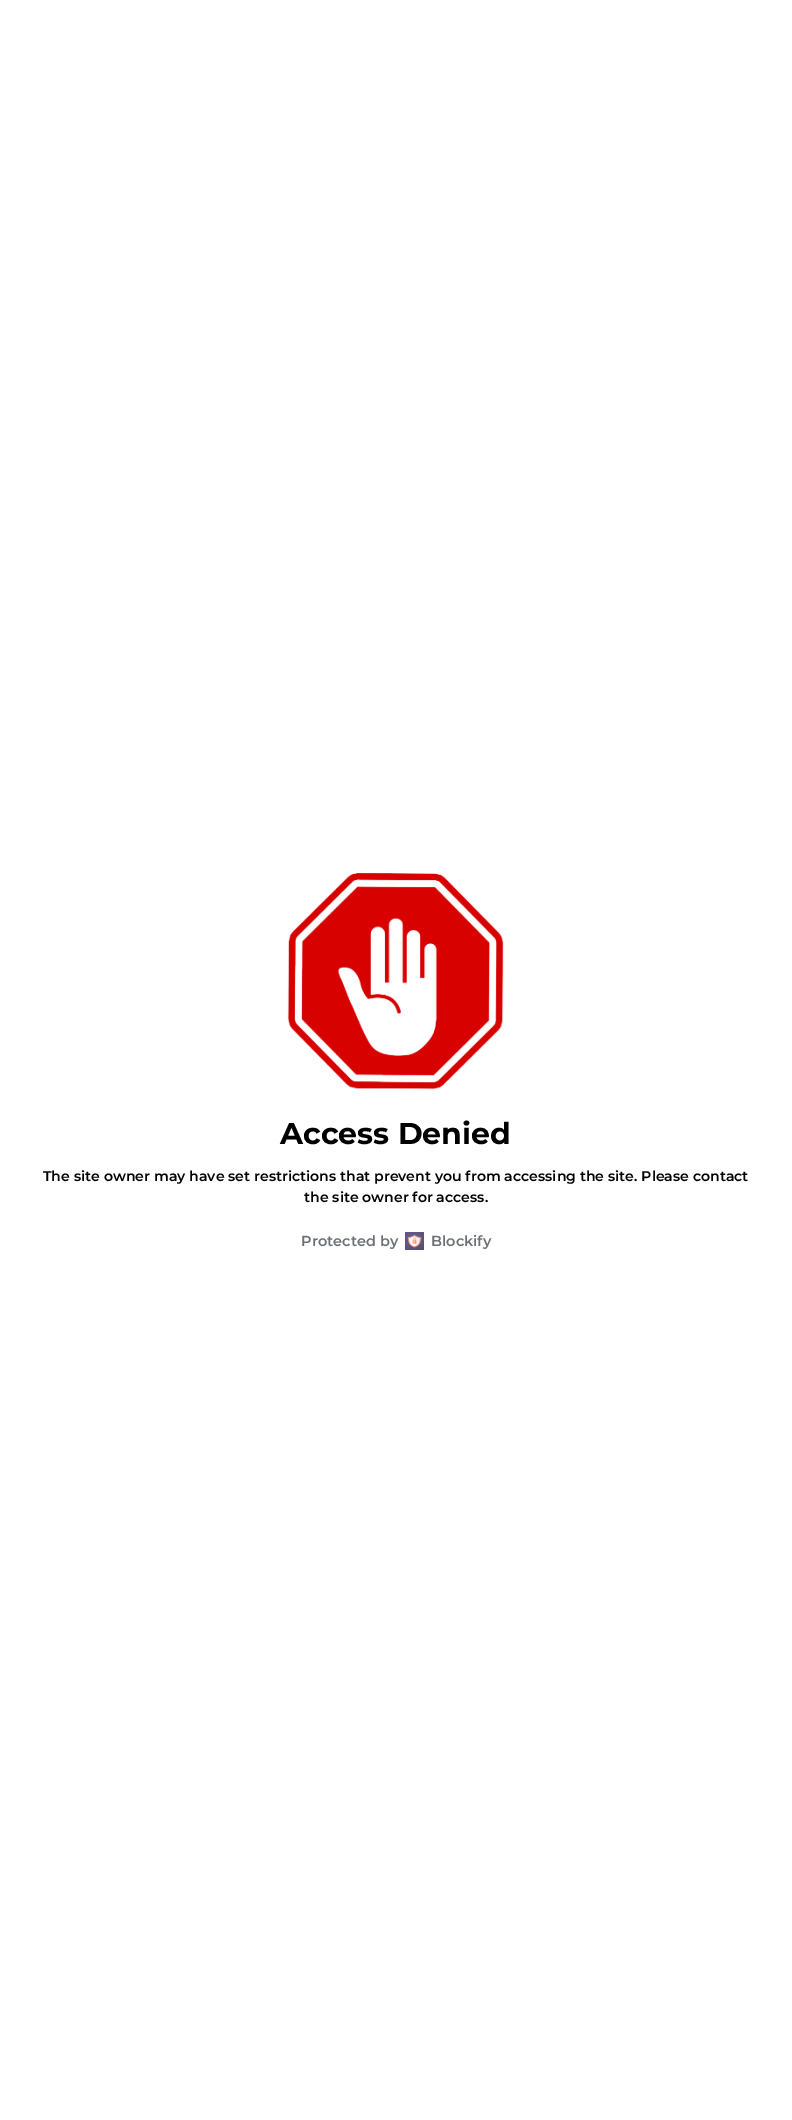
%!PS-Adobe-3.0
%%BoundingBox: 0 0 792 2120
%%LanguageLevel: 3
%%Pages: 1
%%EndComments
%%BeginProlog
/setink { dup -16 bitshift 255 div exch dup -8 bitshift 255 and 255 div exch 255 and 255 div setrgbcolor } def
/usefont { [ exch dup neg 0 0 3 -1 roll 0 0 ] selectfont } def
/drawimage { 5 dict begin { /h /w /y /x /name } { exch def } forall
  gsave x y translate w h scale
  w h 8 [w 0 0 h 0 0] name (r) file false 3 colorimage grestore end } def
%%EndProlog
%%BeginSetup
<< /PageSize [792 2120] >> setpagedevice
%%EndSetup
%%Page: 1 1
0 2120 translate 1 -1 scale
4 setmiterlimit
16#FFFFFF setink
0 0 792 2120 rectfill
(img1.raw) 287 872 217 218 drawimage
/Montserrat-Bold 30 usefont
16#000000 setink
280 1144 moveto (Access Denied) show
/Montserrat-SemiBold 14.08 usefont
43 1181 moveto (The site owner may have set restrictions that prevent you from accessing the site. Please contact) show
304 1202 moveto (the site owner for access.) show
/Montserrat-SemiBold 14.5 usefont
16#6D7175 setink
301 1246 moveto (Protected by) show
(img2.raw) 405 1232 19 18 drawimage
431 1246 moveto (Blockify) show
showpage
%%EOF
